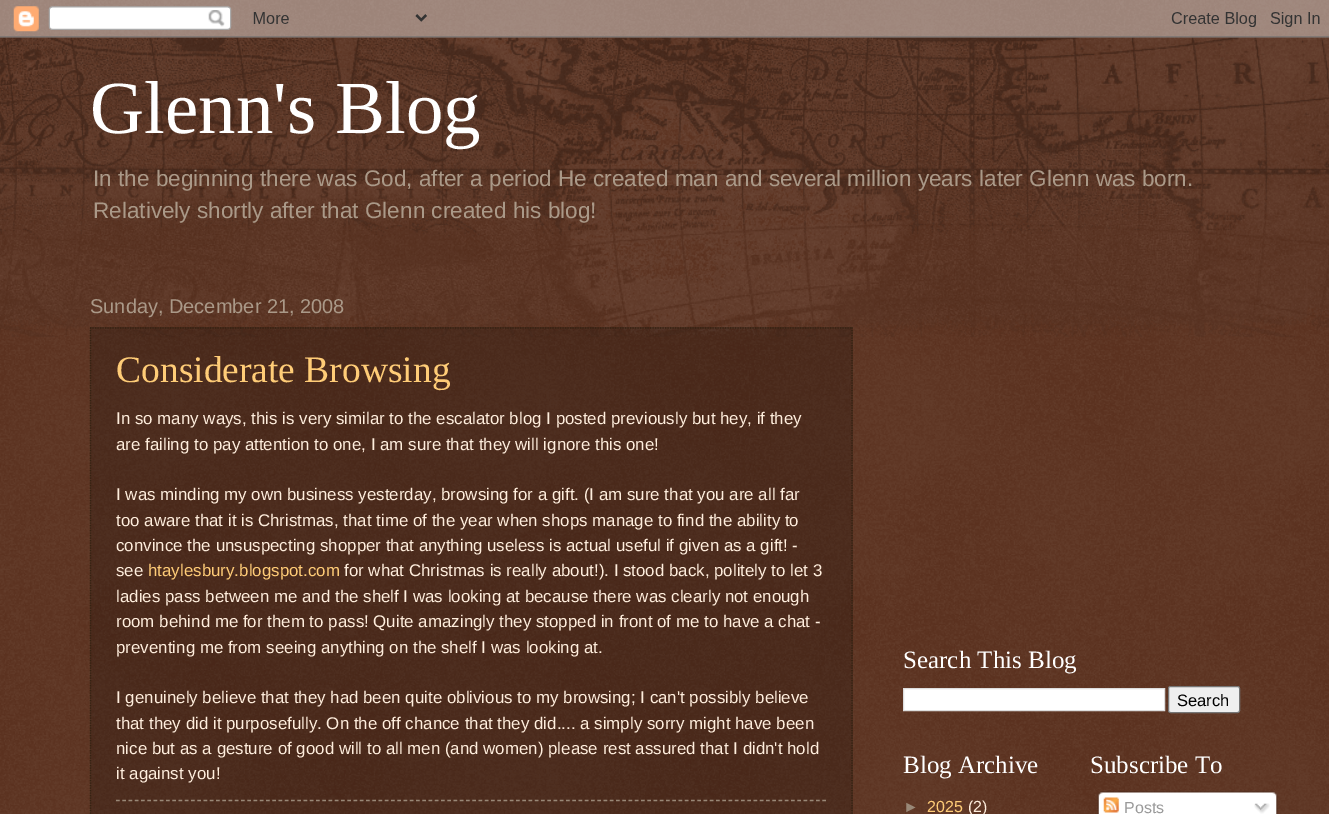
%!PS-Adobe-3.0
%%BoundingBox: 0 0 1329 814
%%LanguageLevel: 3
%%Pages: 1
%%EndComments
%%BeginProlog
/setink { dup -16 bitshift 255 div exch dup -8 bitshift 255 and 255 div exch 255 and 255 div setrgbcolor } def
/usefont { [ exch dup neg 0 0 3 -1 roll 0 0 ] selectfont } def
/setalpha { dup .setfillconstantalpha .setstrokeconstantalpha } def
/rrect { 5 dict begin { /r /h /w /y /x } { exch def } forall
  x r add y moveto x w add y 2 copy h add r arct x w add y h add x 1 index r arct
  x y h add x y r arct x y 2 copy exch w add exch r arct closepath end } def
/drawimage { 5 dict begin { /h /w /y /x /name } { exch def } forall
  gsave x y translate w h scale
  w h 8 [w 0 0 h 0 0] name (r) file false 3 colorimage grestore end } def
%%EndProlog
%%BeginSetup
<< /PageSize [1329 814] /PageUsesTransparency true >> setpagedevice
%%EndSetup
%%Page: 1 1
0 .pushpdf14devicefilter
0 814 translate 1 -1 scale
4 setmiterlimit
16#441500 setink
0 0 1329 814 rectfill
(img1.raw) 0 0 1329 814 drawimage
(img3.raw) 0 37 1329 300 drawimage
(img2.raw) 0 0 1329 38 drawimage
/LiberationSerif-Regular 75 usefont
16#FFFFFF setink
90 133 moveto (Glenn's Blog) show
/LiberationSans-Regular 22.55 usefont
16#AA9988 setink
93 186 moveto (In the beginning there was God, after a period He created man and several million years later Glenn was born.) show
93 218 moveto (Relatively shortly after that Glenn created his blog!) show
/LiberationSans-Regular 20 usefont
90 313 moveto (Sunday, December 21, 2008) show
0.2 setalpha
16#000000 setink
90 327 763 487 rectfill
1 setalpha
16#332211 setink
1.2 setlinewidth
[1.25 1.25] 0 setdash
90 328 moveto 852.5 328 lineto stroke
852 327.5 moveto 852 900 lineto stroke
90.5 327.5 moveto 90.5 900 lineto stroke
/LiberationSerif-Regular 37.5 usefont
16#FFCC77 setink
116 382 moveto (Considerate Browsing) show
/LiberationSans-Regular 16.9 usefont
16#FFEEDD setink
[
    [(In so many ways, this is very similar to the escalator blog I posted previously but hey, if they) 116 424]
    [(are failing to pay attention to one, I am sure that they will ignore this one!) 116 450]
    [(I was minding my own business yesterday, browsing for a gift. \(I am sure that you are all far) 116 500]
    [(too aware that it is Christmas, that time of the year when shops manage to find the ability to) 116 526]
    [(convince the unsuspecting shopper that anything useless is actual useful if given as a gift! -) 116 551]
    [(see) 116 576]
] { aload pop moveto show } forall
16#FFCC77 setink
148 576 moveto (htaylesbury.blogspot.com) show
16#FFEEDD setink
[
    [(for what Christmas is really about!\). I stood back, politely to let 3) 344 576]
    [(ladies pass between me and the shelf I was looking at because there was clearly not enough) 116 602]
    [(room behind me for them to pass! Quite amazingly they stopped in front of me to have a chat -) 116 627]
    [(preventing me from seeing anything on the shelf I was looking at.) 116 653]
    [(I genuinely believe that they had been quite oblivious to my browsing; I can't possibly believe) 116 703]
    [(that they did it purposefully. On the off chance that they did.... a simply sorry might have been) 116 729]
    [(nice but as a gesture of good will to all men \(and women\) please rest assured that I didn't hold) 116 754]
    [(it against you!) 116 779]
] { aload pop moveto show } forall
16#998877 setink
[3.75 2.5] 0 setdash
116 800.5 moveto 826 800.5 lineto stroke
/LiberationSerif-Regular 25 usefont
16#FFFFFF setink
903 668 moveto (Search This Blog) show
903.5 688.5 moveto 1164.5 688.5 lineto 1164.5 710.5 lineto 903.5 710.5 lineto closepath gsave fill grestore
16#DDDDDD setink
1 setlinewidth
[] 0 setdash
stroke
16#EFEFEF setink
1168.5 686.5 71 26 2 rrect gsave fill grestore
16#767676 setink
stroke
/LiberationSans-Regular 16.5 usefont
16#000000 setink
1177 706 moveto (Search) show
/LiberationSerif-Regular 25 usefont
16#FFFFFF setink
903 773 moveto (Blog Archive) show
/LiberationSans-Regular 16 usefont
16#998877 setink
903 812 moveto (►) show
16#FFCC77 setink
927 812 moveto (2025) show
16#FFEEDD setink
968 812 moveto (\(2\)) show
/LiberationSerif-Regular 25 usefont
16#FFFFFF setink
1090 773 moveto (Subscribe To) show
(img4.raw) 1097 791 181 23 drawimage
(img5.raw) 1103 797 16 16 drawimage
/LiberationSans-Regular 16 usefont
16#999999 setink
1124 813 moveto (Posts) show
(img6.raw) 1254 803 16 11 drawimage
.poppdf14devicefilter showpage
%%EOF
